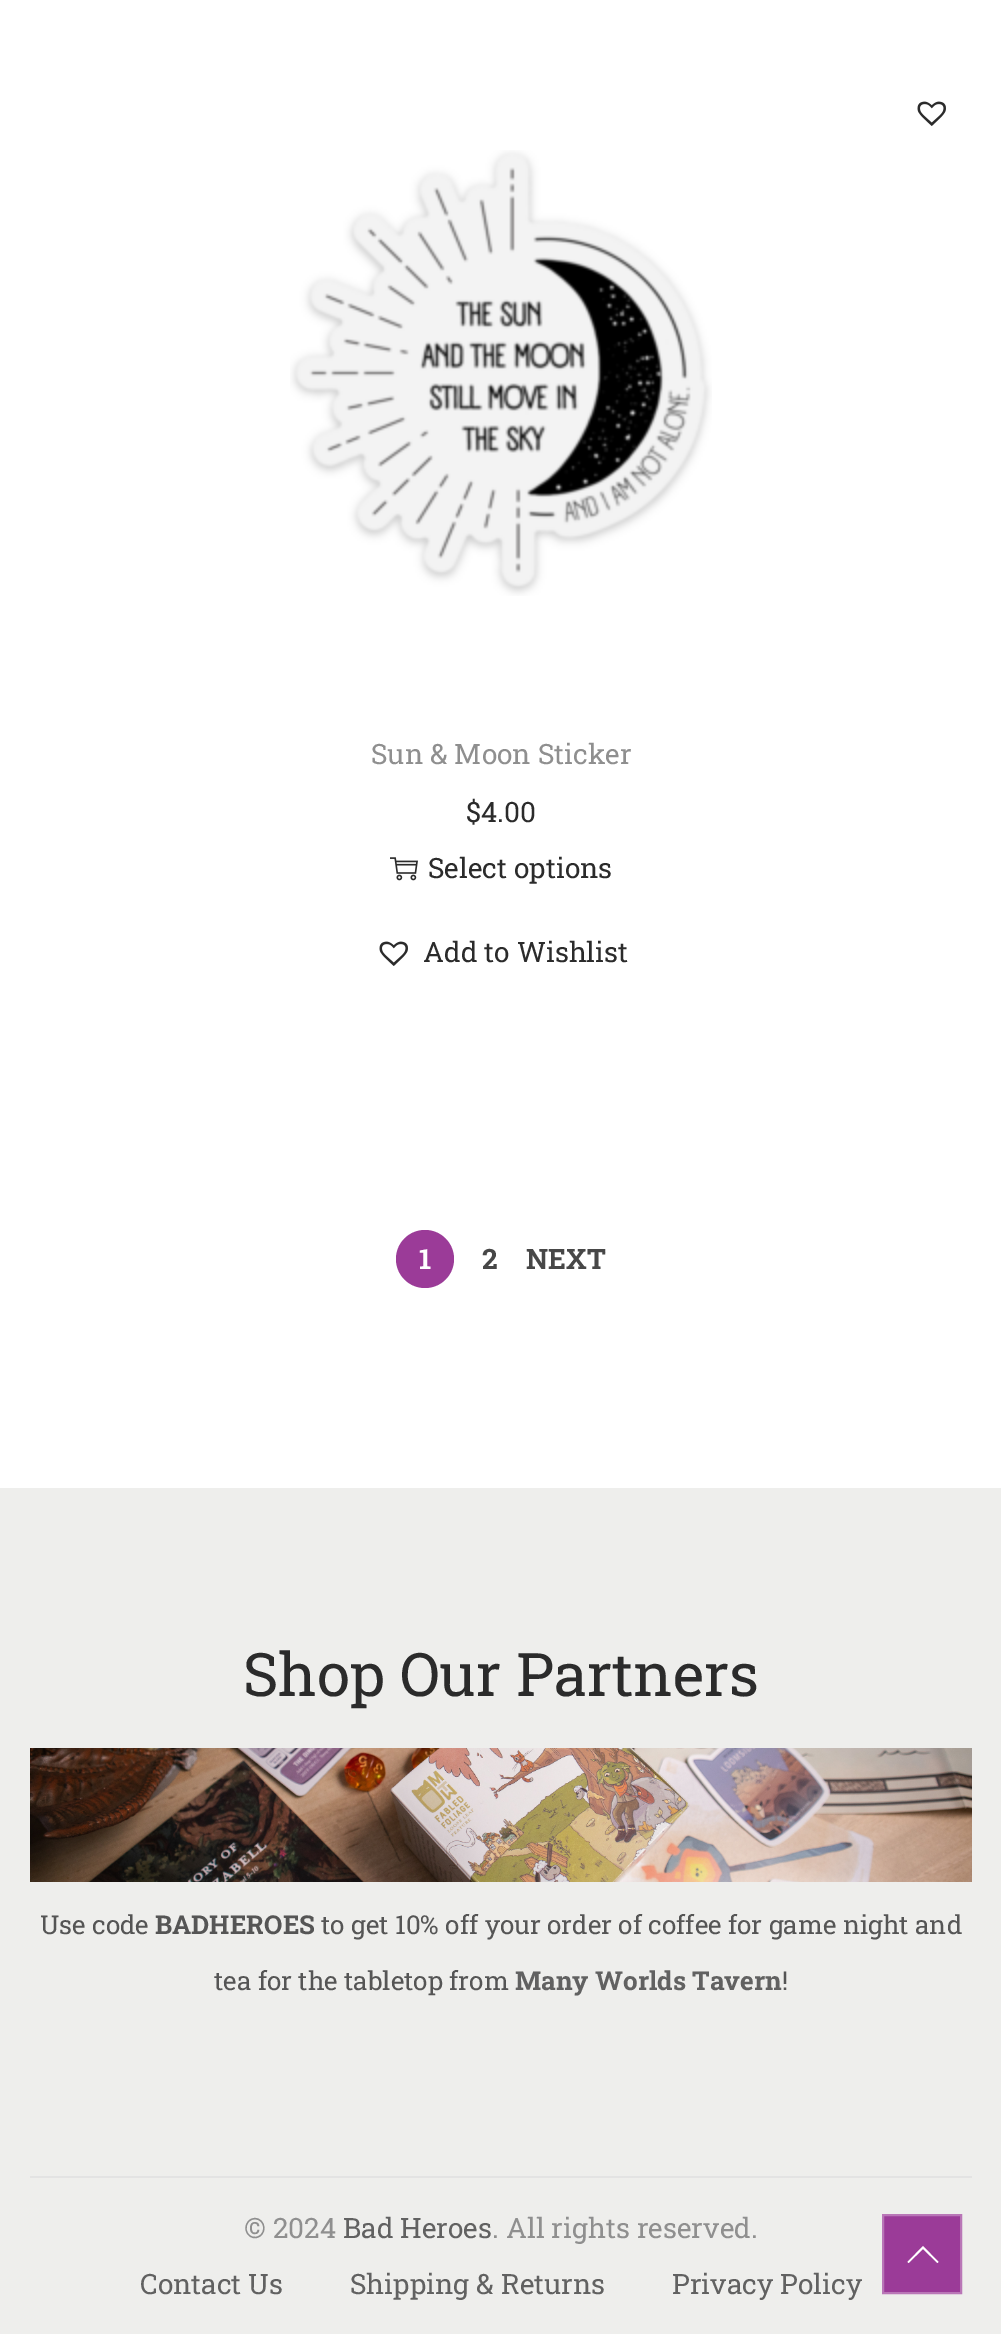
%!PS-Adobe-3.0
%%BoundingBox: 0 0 1001 2334
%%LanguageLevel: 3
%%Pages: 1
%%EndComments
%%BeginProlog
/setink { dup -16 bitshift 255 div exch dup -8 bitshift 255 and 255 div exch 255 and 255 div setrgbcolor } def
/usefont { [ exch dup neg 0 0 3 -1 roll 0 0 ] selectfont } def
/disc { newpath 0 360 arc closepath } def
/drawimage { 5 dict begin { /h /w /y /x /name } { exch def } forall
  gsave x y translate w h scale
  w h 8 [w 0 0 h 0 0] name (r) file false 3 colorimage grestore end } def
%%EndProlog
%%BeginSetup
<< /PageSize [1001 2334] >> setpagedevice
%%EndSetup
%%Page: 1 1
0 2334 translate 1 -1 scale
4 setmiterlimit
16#FFFFFF setink
0 0 1001 2334 rectfill
(img1.raw) 917 101 29 25 drawimage
(img2.raw) 290 150 422 446 drawimage
/RobotoSlab-Regular 28 usefont
16#8F8F8F setink
371 764 moveto (Sun & Moon Sticker) show
16#2B2B2B setink
466 822 moveto ($4.00) show
(img3.raw) 390 857 28 24 drawimage
428 878 moveto (Select options) show
(img1.raw) 379 941 29 25 drawimage
423 962 moveto (Add to Wishlist) show
16#9B3B98 setink
425 1259 29 disc fill
/RobotoSlab-Bold 28 usefont
16#FFFFFF setink
419 1269 moveto (1) show
16#474747 setink
482 1269 moveto (2) show
526 1269 moveto (NEXT) show
16#EEEEEC setink
0 1488 1001 846 rectfill
/RobotoSlab-Regular 60 usefont
16#2B2B2B setink
243 1696 moveto (Shop Our Partners) show
(img4.raw) 30 1748 942 134 drawimage
/RobotoSlab-Regular 26 usefont
16#555555 setink
40 1934 moveto (Use code) show
/RobotoSlab-Bold 26 usefont
155 1934 moveto (BADHEROES) show
/RobotoSlab-Regular 26 usefont
321 1934 moveto (to get 10% off your order of coffee for game night and) show
214 1990 moveto (tea for the tabletop from) show
/RobotoSlab-Bold 26 usefont
16#616161 setink
515 1990 moveto (Many Worlds Tavern) show
/RobotoSlab-Regular 26 usefont
16#555555 setink
782 1990 moveto (!) show
16#E3E3E3 setink
30 2176 942 2 rectfill
/RobotoSlab-Regular 28 usefont
16#8F8F8F setink
244 2238 moveto (© 2024) show
16#616161 setink
343 2238 moveto (Bad Heroes) show
16#8F8F8F setink
492 2238 moveto (. All rights reserved.) show
16#616161 setink
[
    [(Contact Us) 140 2294]
    [(Shipping & Returns) 350 2294]
    [(Privacy Policy) 672 2294]
] { aload pop moveto show } forall
16#9B3B98 setink
883 2215 moveto 961 2215 lineto 961 2293 lineto 883 2293 lineto closepath gsave fill grestore
16#B976B7 setink
2 setlinewidth
stroke
16#FFFFFF setink
938.5 2262 moveto 937.5 2263 lineto 923 2249 lineto 908.5 2263 lineto 907.5 2262 lineto 923 2246 lineto closepath fill
showpage
%%EOF
